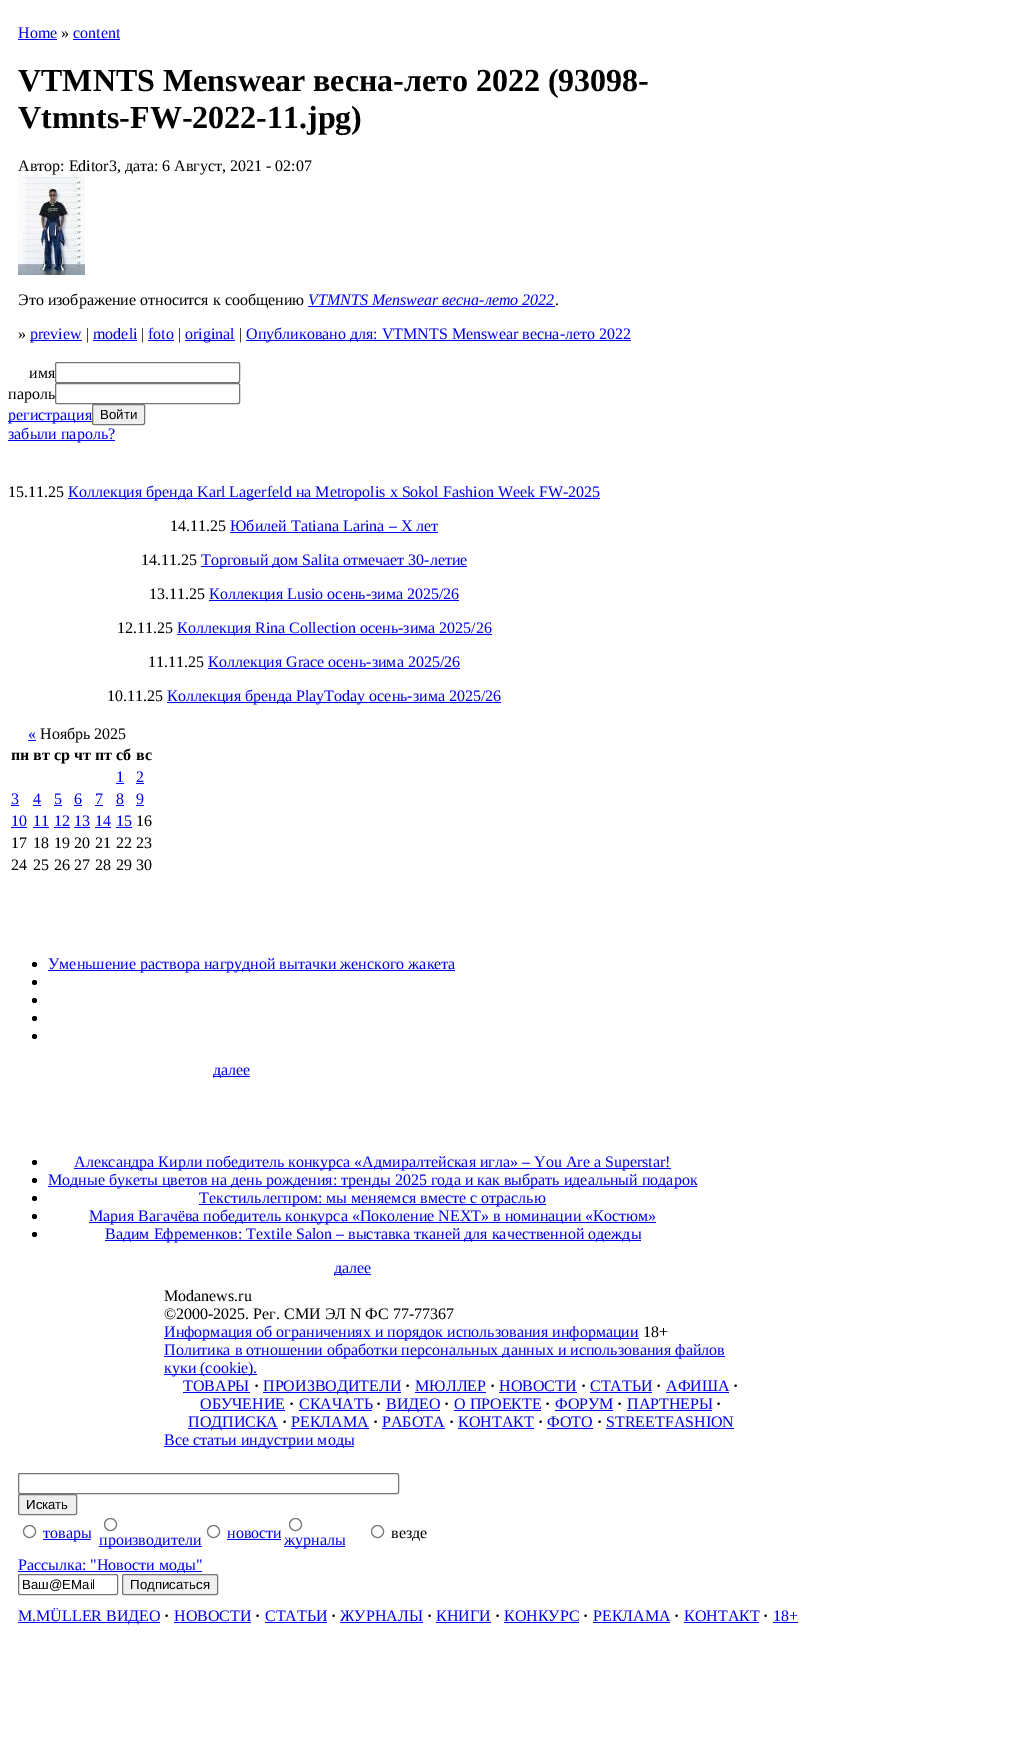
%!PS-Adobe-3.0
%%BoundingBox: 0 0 1026 1764
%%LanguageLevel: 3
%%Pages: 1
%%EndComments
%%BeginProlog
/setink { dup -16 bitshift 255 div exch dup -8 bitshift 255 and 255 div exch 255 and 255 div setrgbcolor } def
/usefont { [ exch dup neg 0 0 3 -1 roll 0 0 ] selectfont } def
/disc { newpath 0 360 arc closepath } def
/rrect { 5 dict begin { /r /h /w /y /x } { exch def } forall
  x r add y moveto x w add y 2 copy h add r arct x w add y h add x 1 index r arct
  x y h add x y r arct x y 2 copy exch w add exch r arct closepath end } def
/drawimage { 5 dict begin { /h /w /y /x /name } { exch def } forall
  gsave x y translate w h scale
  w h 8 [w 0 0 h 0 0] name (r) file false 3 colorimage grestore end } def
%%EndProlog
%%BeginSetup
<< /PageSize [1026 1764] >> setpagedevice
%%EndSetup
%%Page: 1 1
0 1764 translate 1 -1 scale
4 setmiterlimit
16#FFFFFF setink
0 0 1026 1764 rectfill
/LiberationSerif-Regular 16 usefont
16#0000EE setink
18 38 moveto (Home) show
18 39 39 1 rectfill
16#000000 setink
61 38 moveto (») show
16#0000EE setink
73 38 moveto (content) show
73 39 47 1 rectfill
/LiberationSerif-Bold 32 usefont
16#000000 setink
18 91 moveto (VTMNTS Menswear весна-лето 2022 \(93098-) show
18 128 moveto (Vtmnts-FW-2022-11.jpg\)) show
/LiberationSerif-Regular 16 usefont
18 171 moveto (Автор: Editor3, дата: 6 Август, 2021 - 02:07) show
(img1.raw) 18 175 67 100 drawimage
18 305 moveto (Это изображение относится к сообщению) show
/LiberationSerif-Italic 16 usefont
16#0000EE setink
308 305 moveto (VTMNTS Menswear весна-лето 2022) show
308 306 247 1 rectfill
/LiberationSerif-Regular 16 usefont
16#000000 setink
555 305 moveto (.) show
18 339 moveto (») show
16#0000EE setink
30 340 52 1 rectfill
30 339 moveto (preview) show
16#000000 setink
86 339 moveto (|) show
16#0000EE setink
93 339 moveto (modeli) show
93 340 44 1 rectfill
16#000000 setink
141 339 moveto (|) show
16#0000EE setink
148 339 moveto (foto) show
148 340 26 1 rectfill
16#000000 setink
178 339 moveto (|) show
16#0000EE setink
185 340 50 1 rectfill
185 339 moveto (original) show
16#000000 setink
239 339 moveto (|) show
16#0000EE setink
246 340 385 1 rectfill
246 339 moveto (Опубликовано для: VTMNTS Menswear весна-лето 2022) show
16#000000 setink
29 378 moveto (имя) show
16#767676 setink
55.5 362.5 184 20 1.5 rrect stroke
16#000000 setink
8 399 moveto (пароль) show
16#767676 setink
55.5 383.5 184 20 1.5 rrect stroke
16#0000EE setink
8 421 84 1 rectfill
8 420 moveto (регистрация) show
16#EFEFEF setink
92.5 404.5 52 20 1.5 rrect gsave fill grestore
16#767676 setink
stroke
/LiberationSans-Regular 13.25 usefont
16#000000 setink
100 419 moveto (Войти) show
16#0000EE setink
8 440 107 1 rectfill
/LiberationSerif-Regular 16 usefont
8 439 moveto (забыли пароль?) show
16#000000 setink
8 497 moveto (15.11.25) show
16#0000EE setink
68 498 532 1 rectfill
68 497 moveto (Коллекция бренда Karl Lagerfeld на Metropolis x Sokol Fashion Week FW-2025) show
16#000000 setink
170 531 moveto (14.11.25) show
16#0000EE setink
230 531 moveto (Юбилей Tatiana Larina – X лет) show
230 532 208 1 rectfill
16#000000 setink
141 565 moveto (14.11.25) show
16#0000EE setink
201 566 266 1 rectfill
201 565 moveto (Торговый дом Salita отмечает 30-летие) show
16#000000 setink
149 599 moveto (13.11.25) show
16#0000EE setink
209 600 250 1 rectfill
209 599 moveto (Коллекция Lusio осень-зима 2025/26) show
16#000000 setink
117 633 moveto (12.11.25) show
16#0000EE setink
177 634 315 1 rectfill
177 633 moveto (Коллекция Rina Collection осень-зима 2025/26) show
16#000000 setink
148 667 moveto (11.11.25) show
16#0000EE setink
208 668 252 1 rectfill
208 667 moveto (Коллекция Grace осень-зима 2025/26) show
16#000000 setink
107 701 moveto (10.11.25) show
16#0000EE setink
167 702 334 1 rectfill
167 701 moveto (Коллекция бренда PlayToday осень-зима 2025/26) show
28 739 moveto («) show
28 740 8 1 rectfill
16#000000 setink
40 739 moveto (Ноябрь 2025) show
/LiberationSerif-Bold 16 usefont
[
    [(пн вт ср чт пт) 11 760]
    [(сб) 116 760]
    [(вс) 136 760]
] { aload pop moveto show } forall
/LiberationSerif-Regular 16 usefont
16#0000EE setink
116 782 moveto (1) show
116 783 8 1 rectfill
136 782 moveto (2) show
136 783 8 1 rectfill
11 804 moveto (3) show
11 805 8 1 rectfill
33 804 moveto (4) show
33 805 8 1 rectfill
54 804 moveto (5) show
54 805 8 1 rectfill
74 804 moveto (6) show
74 805 8 1 rectfill
95 804 moveto (7) show
95 805 8 1 rectfill
116 804 moveto (8) show
116 805 8 1 rectfill
136 804 moveto (9) show
136 805 8 1 rectfill
11 826 moveto (10) show
11 827 16 1 rectfill
33 826 moveto (11) show
33 827 16 1 rectfill
54 826 moveto (12 13) show
54 827 16 1 rectfill
95 826 moveto (14) show
95 827 16 1 rectfill
116 826 moveto (15) show
116 827 16 1 rectfill
16#000000 setink
136 826 moveto (16) show
16#0000EE setink
74 827 16 1 rectfill
16#000000 setink
[
    [(17) 11 848]
    [(18) 33 848]
    [(19 20) 54 848]
    [(21) 95 848]
    [(22 23) 116 848]
    [(24) 11 870]
    [(25) 33 870]
    [(26 27) 54 870]
    [(28) 95 870]
    [(29 30) 116 870]
] { aload pop moveto show } forall
34.5 964.5 2.5 disc fill
16#0000EE setink
48 970 407 1 rectfill
48 969 moveto (Уменьшение раствора нагрудной вытачки женского жакета) show
16#000000 setink
34.5 982.5 2.5 disc fill
34.5 1000.5 2.5 disc fill
34.5 1018.5 2.5 disc fill
34.5 1036.5 2.5 disc fill
16#0000EE setink
213 1076 37 1 rectfill
213 1075 moveto (далее) show
16#000000 setink
34.5 1162.5 2.5 disc fill
16#0000EE setink
74 1168 597 1 rectfill
74 1167 moveto (Александра Кирли победитель конкурса «Адмиралтейская игла» – You Are a Superstar!) show
16#000000 setink
34.5 1180.5 2.5 disc fill
16#0000EE setink
48 1186 649 1 rectfill
48 1185 moveto (Модные букеты цветов на день рождения: тренды 2025 года и как выбрать идеальный подарок) show
16#000000 setink
34.5 1198.5 2.5 disc fill
16#0000EE setink
199 1204 347 1 rectfill
199 1203 moveto (Текстильлегпром: мы меняемся вместе с отраслью) show
16#000000 setink
34.5 1216.5 2.5 disc fill
16#0000EE setink
89 1222 567 1 rectfill
89 1221 moveto (Мария Вагачёва победитель конкурса «Поколение NEXT» в номинации «Костюм») show
16#000000 setink
34.5 1234.5 2.5 disc fill
16#0000EE setink
105 1240 536 1 rectfill
105 1239 moveto (Вадим Ефременков: Textile Salon – выставка тканей для качественной одежды) show
334 1274 37 1 rectfill
334 1273 moveto (далее) show
16#000000 setink
164 1301 moveto (Modanews.ru) show
164 1319 moveto (©2000-2025. Рег. СМИ ЭЛ N ФС 77-77367) show
16#0000EE setink
164 1338 475 1 rectfill
164 1337 moveto (Информация об ограничениях и порядок использования информации) show
16#000000 setink
643 1337 moveto (18+) show
16#0000EE setink
164 1356 561 1 rectfill
164 1355 moveto (Политика в отношении обработки персональных данных и использования файлов) show
164 1374 93 1 rectfill
164 1373 moveto (куки \(cookie\).) show
183 1391 moveto (ТОВАРЫ) show
183 1392 67 1 rectfill
/LiberationSerif-Bold 16 usefont
16#000000 setink
254 1391 moveto (·) show
16#0000EE setink
263 1392 138 1 rectfill
/LiberationSerif-Regular 16 usefont
263 1391 moveto (ПРОИЗВОДИТЕЛИ) show
/LiberationSerif-Bold 16 usefont
16#000000 setink
405 1391 moveto (·) show
/LiberationSerif-Regular 16 usefont
16#0000EE setink
415 1391 moveto (МЮЛЛЕР) show
415 1392 71 1 rectfill
/LiberationSerif-Bold 16 usefont
16#000000 setink
490 1391 moveto (·) show
/LiberationSerif-Regular 16 usefont
16#0000EE setink
499 1391 moveto (НОВОСТИ) show
499 1392 78 1 rectfill
/LiberationSerif-Bold 16 usefont
16#000000 setink
581 1391 moveto (·) show
/LiberationSerif-Regular 16 usefont
16#0000EE setink
590 1391 moveto (СТАТЬИ) show
590 1392 62 1 rectfill
/LiberationSerif-Bold 16 usefont
16#000000 setink
656 1391 moveto (·) show
/LiberationSerif-Regular 16 usefont
16#0000EE setink
666 1391 moveto (АФИША) show
666 1392 63 1 rectfill
/LiberationSerif-Bold 16 usefont
16#000000 setink
733 1391 moveto (·) show
/LiberationSerif-Regular 16 usefont
16#0000EE setink
200 1409 moveto (ОБУЧЕНИЕ) show
200 1410 85 1 rectfill
/LiberationSerif-Bold 16 usefont
16#000000 setink
289 1409 moveto (·) show
/LiberationSerif-Regular 16 usefont
16#0000EE setink
299 1409 moveto (СКАЧАТЬ) show
299 1410 73 1 rectfill
/LiberationSerif-Bold 16 usefont
16#000000 setink
376 1409 moveto (·) show
16#0000EE setink
386 1410 54 1 rectfill
/LiberationSerif-Regular 16 usefont
386 1409 moveto (ВИДЕО) show
/LiberationSerif-Bold 16 usefont
16#000000 setink
444 1409 moveto (·) show
/LiberationSerif-Regular 16 usefont
16#0000EE setink
454 1409 moveto (О ПРОЕКТЕ) show
454 1410 87 1 rectfill
/LiberationSerif-Bold 16 usefont
16#000000 setink
545 1409 moveto (·) show
/LiberationSerif-Regular 16 usefont
16#0000EE setink
555 1409 moveto (ФОРУМ) show
555 1410 58 1 rectfill
/LiberationSerif-Bold 16 usefont
16#000000 setink
617 1409 moveto (·) show
/LiberationSerif-Regular 16 usefont
16#0000EE setink
627 1409 moveto (ПАРТНЕРЫ) show
627 1410 85 1 rectfill
/LiberationSerif-Bold 16 usefont
16#000000 setink
716 1409 moveto (·) show
16#0000EE setink
188 1428 90 1 rectfill
/LiberationSerif-Regular 16 usefont
188 1427 moveto (ПОДПИСКА) show
/LiberationSerif-Bold 16 usefont
16#000000 setink
282 1427 moveto (·) show
/LiberationSerif-Regular 16 usefont
16#0000EE setink
291 1427 moveto (РЕКЛАМА) show
291 1428 78 1 rectfill
/LiberationSerif-Bold 16 usefont
16#000000 setink
373 1427 moveto (·) show
/LiberationSerif-Regular 16 usefont
16#0000EE setink
382 1427 moveto (РАБОТА) show
382 1428 63 1 rectfill
/LiberationSerif-Bold 16 usefont
16#000000 setink
449 1427 moveto (·) show
/LiberationSerif-Regular 16 usefont
16#0000EE setink
458 1427 moveto (КОНТАКТ) show
458 1428 76 1 rectfill
/LiberationSerif-Bold 16 usefont
16#000000 setink
538 1427 moveto (·) show
/LiberationSerif-Regular 16 usefont
16#0000EE setink
547 1427 moveto (ФОТО) show
547 1428 46 1 rectfill
/LiberationSerif-Bold 16 usefont
16#000000 setink
597 1427 moveto (·) show
/LiberationSerif-Regular 16 usefont
16#0000EE setink
606 1427 moveto (STREETFASHION) show
606 1428 128 1 rectfill
164 1446 190 1 rectfill
164 1445 moveto (Все статьи индустрии моды) show
16#767676 setink
18.5 1473.5 380 20 1.5 rrect stroke
16#EFEFEF setink
18.5 1494.5 58 20 1.5 rrect gsave fill grestore
16#767676 setink
stroke
/LiberationSans-Regular 13.25 usefont
16#000000 setink
26 1509 moveto (Искать) show
16#767676 setink
29.5 1531.5 6 disc stroke
16#0000EE setink
43 1539 48 1 rectfill
/LiberationSerif-Regular 16 usefont
43 1538 moveto (товары) show
16#767676 setink
110.5 1524.5 6 disc stroke
16#0000EE setink
99 1546 103 1 rectfill
99 1545 moveto (производители) show
16#767676 setink
213.5 1531.5 6 disc stroke
16#0000EE setink
227 1538 moveto (новости) show
227 1539 54 1 rectfill
16#767676 setink
295.5 1524.5 6 disc stroke
16#0000EE setink
284 1546 61 1 rectfill
284 1545 moveto (журналы) show
16#767676 setink
377.5 1531.5 6 disc stroke
16#000000 setink
391 1538 moveto (везде) show
16#0000EE setink
18 1571 184 1 rectfill
18 1570 moveto (Рассылка: "Новости моды") show
16#767676 setink
18.5 1574.5 99 20 1.5 rrect stroke
/LiberationSans-Regular 13.25 usefont
16#000000 setink
22 1589 moveto (Ваш@EMail) show
16#EFEFEF setink
122.5 1574.5 95 20 1.5 rrect gsave fill grestore
16#767676 setink
stroke
16#000000 setink
130 1589 moveto (Подписаться) show
16#0000EE setink
18 1622 142 1 rectfill
/LiberationSerif-Regular 16 usefont
18 1621 moveto (M.MÜLLER ВИДЕО) show
/LiberationSerif-Bold 16 usefont
16#000000 setink
164 1621 moveto (·) show
/LiberationSerif-Regular 16 usefont
16#0000EE setink
174 1621 moveto (НОВОСТИ) show
174 1622 77 1 rectfill
/LiberationSerif-Bold 16 usefont
16#000000 setink
255 1621 moveto (·) show
/LiberationSerif-Regular 16 usefont
16#0000EE setink
265 1621 moveto (СТАТЬИ) show
265 1622 62 1 rectfill
/LiberationSerif-Bold 16 usefont
16#000000 setink
331 1621 moveto (·) show
/LiberationSerif-Regular 16 usefont
16#0000EE setink
340 1621 moveto (ЖУРНАЛЫ) show
340 1622 83 1 rectfill
/LiberationSerif-Bold 16 usefont
16#000000 setink
427 1621 moveto (·) show
/LiberationSerif-Regular 16 usefont
16#0000EE setink
436 1621 moveto (КНИГИ) show
436 1622 55 1 rectfill
/LiberationSerif-Bold 16 usefont
16#000000 setink
495 1621 moveto (·) show
/LiberationSerif-Regular 16 usefont
16#0000EE setink
504 1621 moveto (КОНКУРС) show
504 1622 75 1 rectfill
/LiberationSerif-Bold 16 usefont
16#000000 setink
583 1621 moveto (·) show
/LiberationSerif-Regular 16 usefont
16#0000EE setink
593 1621 moveto (РЕКЛАМА) show
593 1622 77 1 rectfill
/LiberationSerif-Bold 16 usefont
16#000000 setink
674 1621 moveto (·) show
/LiberationSerif-Regular 16 usefont
16#0000EE setink
684 1621 moveto (КОНТАКТ) show
684 1622 75 1 rectfill
/LiberationSerif-Bold 16 usefont
16#000000 setink
763 1621 moveto (·) show
/LiberationSerif-Regular 16 usefont
16#0000EE setink
773 1621 moveto (18+) show
773 1622 25 1 rectfill
showpage
%%EOF
